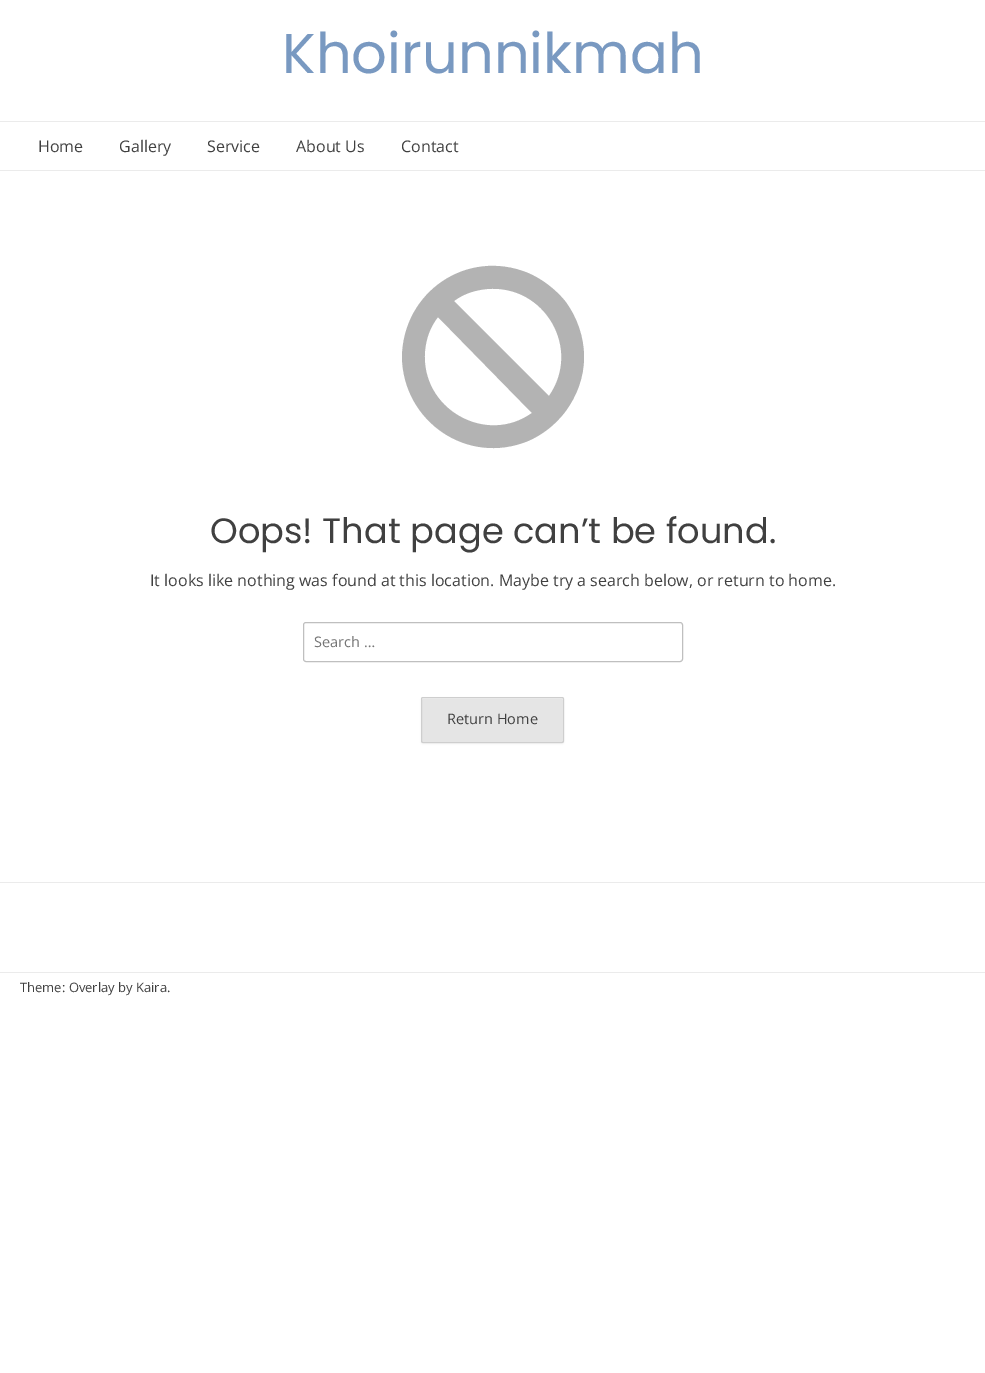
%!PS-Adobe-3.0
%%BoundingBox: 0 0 985 1373
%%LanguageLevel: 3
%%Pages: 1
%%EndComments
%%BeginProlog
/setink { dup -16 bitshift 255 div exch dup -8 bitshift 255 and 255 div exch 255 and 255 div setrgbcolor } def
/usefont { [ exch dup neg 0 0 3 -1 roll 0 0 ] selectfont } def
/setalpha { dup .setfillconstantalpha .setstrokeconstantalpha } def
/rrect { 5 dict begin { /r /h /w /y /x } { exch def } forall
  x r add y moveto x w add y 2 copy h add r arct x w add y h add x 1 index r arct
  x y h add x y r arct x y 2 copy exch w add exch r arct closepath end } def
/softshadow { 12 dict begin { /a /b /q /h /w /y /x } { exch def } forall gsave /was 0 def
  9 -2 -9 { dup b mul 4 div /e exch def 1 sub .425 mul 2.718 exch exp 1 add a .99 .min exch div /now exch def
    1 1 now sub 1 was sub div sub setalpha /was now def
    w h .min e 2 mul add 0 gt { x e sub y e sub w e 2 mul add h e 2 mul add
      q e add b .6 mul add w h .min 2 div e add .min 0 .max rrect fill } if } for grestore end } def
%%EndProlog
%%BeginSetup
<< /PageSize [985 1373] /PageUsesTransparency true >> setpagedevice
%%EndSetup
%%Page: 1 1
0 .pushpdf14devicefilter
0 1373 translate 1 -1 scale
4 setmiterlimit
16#FFFFFF setink
0 0 985 1373 rectfill
16#EBEBEB setink
0 170 985 1 rectfill
/Poppins-Regular 56 usefont
16#7999C1 setink
282 73 moveto (Khoirunnikmah) show
16#EBEBEB setink
0 121 985 1 rectfill
/OpenSans-Regular 16 usefont
16#404040 setink
[
    [(Home) 38 152]
    [(Gallery) 119 152]
    [(Service) 207 152]
    [(About Us) 296 152]
    [(Contact) 401 152]
] { aload pop moveto show } forall
16#B3B3B3 setink
532 413 moveto 438 317 lineto 430 327 426 339 425 351 curveto 420 409 486 446 532 413 curveto closepath 549 396 moveto 582 349 545 284 487 289 curveto 475 290 463 294 454 301 curveto closepath 402 357 moveto 403 292 467 248 528 273 curveto 542 279 555 289 565 301 curveto 577 317 584 337 584 357 curveto 584 377 577 396 565 412 curveto 555 425 542 435 528 441 curveto 467 466 403 421 402 357 curveto closepath fill
/Poppins-Regular 35.25 usefont
16#404040 setink
210 543 moveto (Oops! That page can’t be found.) show
/OpenSans-Regular 16 usefont
150 586 moveto (It looks like nothing was found at this location. Maybe try a search below, or return to home.) show
16#BFBFBF setink
303.5 622.5 379 39 2.5 rrect stroke
/OpenSans-Regular 14.5 usefont
16#757575 setink
314 647 moveto (Search …) show
16#000000 setink
421 698 143 46 2 1 0.06 softshadow
16#E5E5E5 setink
421 697 143 46 2 rrect fill
16#EFEFEF setink
423 699 moveto 562 699 lineto 563 699 563 699 563 700 curveto 563 699 563 698 562 698 curveto 423 698 lineto 422 698 422 699 422 700 curveto 422 699 422 699 423 699 curveto closepath fill
0.1 setalpha
16#000000 setink
421.5 697.5 142 45 1.5 rrect stroke
1 setalpha
16#404040 setink
447 724 moveto (Return Home) show
16#EBEBEB setink
0 882 985 1 rectfill
0 972 985 1 rectfill
/OpenSans-Regular 13 usefont
16#404040 setink
20 992 moveto (Theme: Overlay by Kaira.) show
.poppdf14devicefilter showpage
%%EOF
